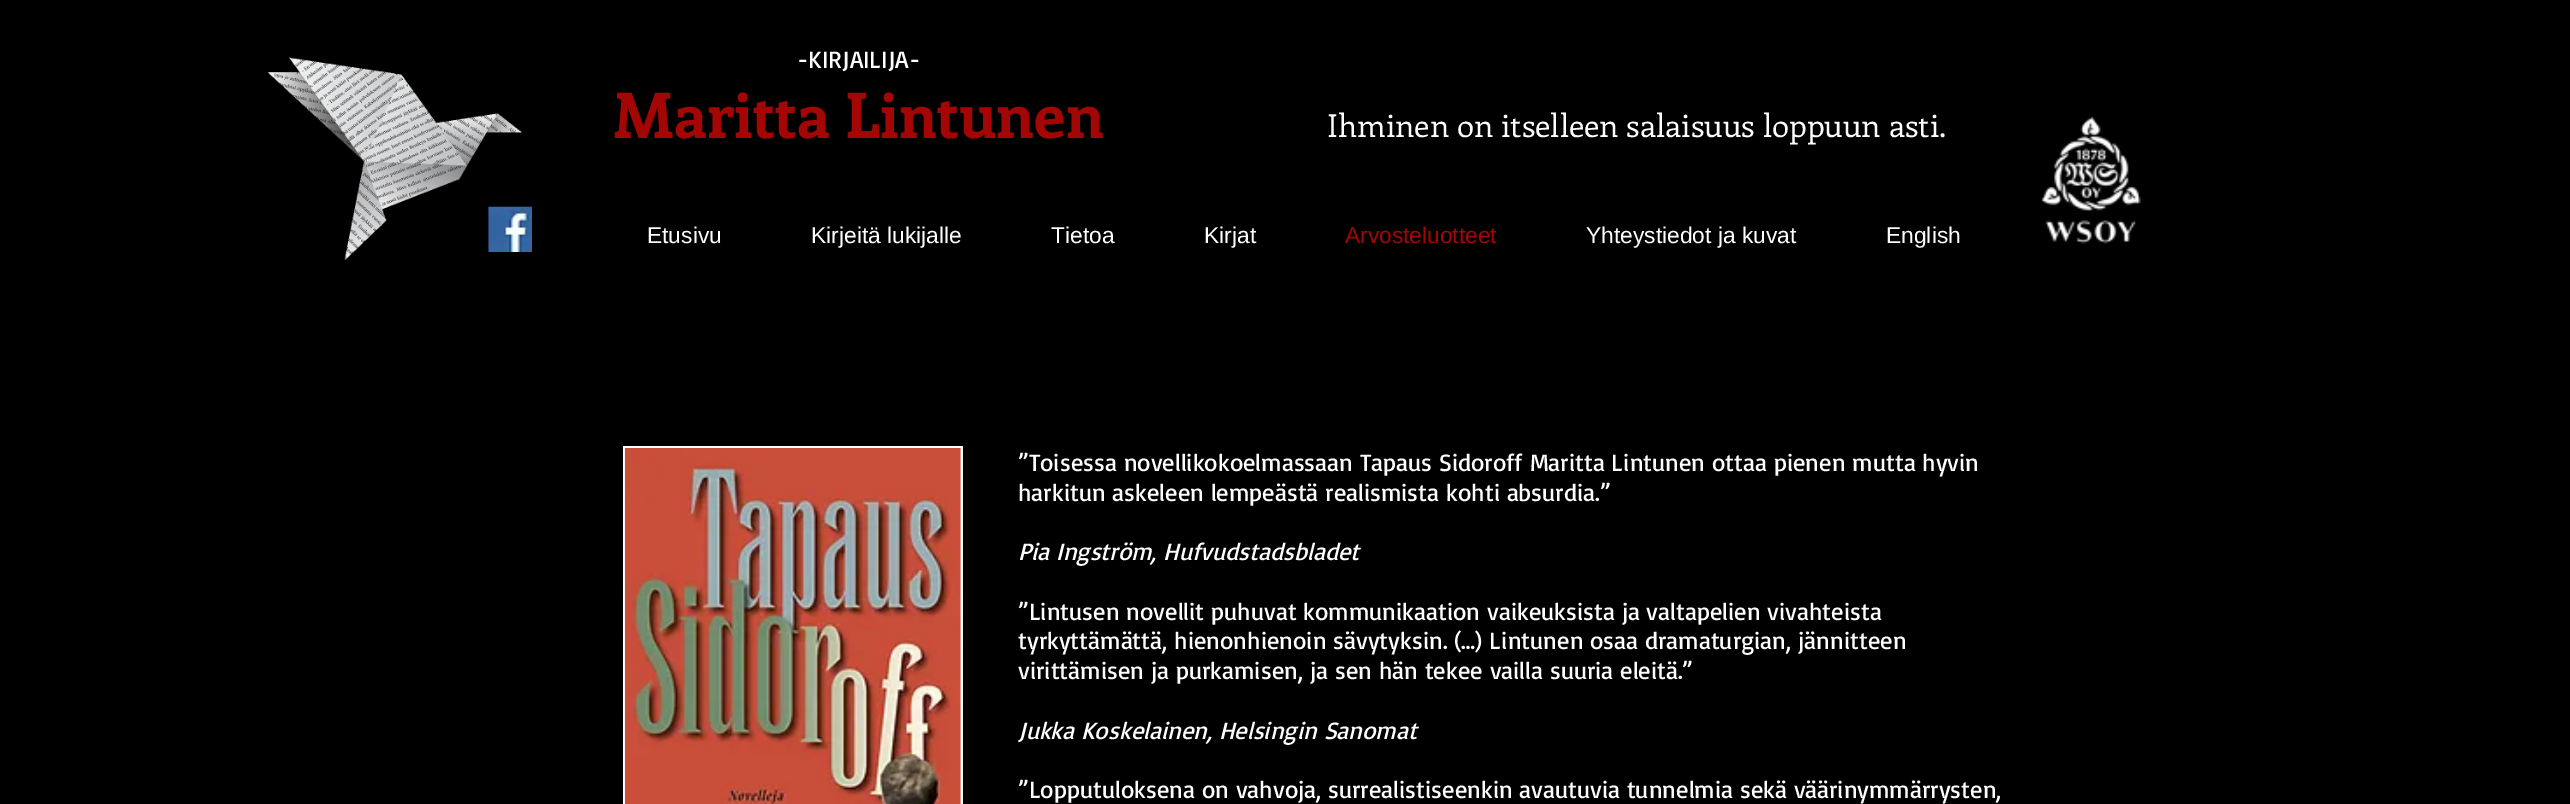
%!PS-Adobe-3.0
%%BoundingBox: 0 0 2570 804
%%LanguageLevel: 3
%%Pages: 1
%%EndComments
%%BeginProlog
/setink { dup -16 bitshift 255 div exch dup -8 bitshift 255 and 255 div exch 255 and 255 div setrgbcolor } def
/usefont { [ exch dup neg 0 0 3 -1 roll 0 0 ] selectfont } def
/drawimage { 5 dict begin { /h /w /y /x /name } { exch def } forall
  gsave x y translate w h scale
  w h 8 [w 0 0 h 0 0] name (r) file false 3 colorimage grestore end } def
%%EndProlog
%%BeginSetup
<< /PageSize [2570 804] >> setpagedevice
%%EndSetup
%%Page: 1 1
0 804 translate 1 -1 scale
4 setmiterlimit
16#000000 setink
0 0 2570 804 rectfill
(img1.raw) 267 57 255 204 drawimage
/Basic-Regular 24.5 usefont
16#FFFFFF setink
797 68 moveto (-KIRJAILIJA-) show
/Enriqueta-Bold 63 usefont
16#A40606 setink
613 138 moveto (Maritta Lintunen) show
/Enriqueta-Regular 31.5 usefont
16#FFFFFF setink
1327 137 moveto (Ihminen on itselleen salaisuus loppuun asti.) show
(img2.raw) 2041 116 100 128 drawimage
(img3.raw) 488 206 44 46 drawimage
/LiberationSans-Regular 22.75 usefont
[
    [(Etusivu) 647 243]
    [(Kirjeitä lukijalle) 811 243]
    [(Tietoa) 1051 243]
    [(Kirjat) 1204 243]
] { aload pop moveto show } forall
16#A40606 setink
1345 243 moveto (Arvosteluotteet) show
16#FFFFFF setink
1586 243 moveto (Yhteystiedot ja kuvat) show
1886 243 moveto (English) show
623 446 340 358 rectfill
(img4.raw) 624 448 337 356 drawimage
/Basic-Regular 24.5 usefont
1018 471 moveto (”Toisessa novellikokoelmassaan Tapaus Sidoroff Maritta Lintunen ottaa pienen mutta hyvin) show
1018 501 moveto (harkitun askeleen lempeästä realismista kohti absurdia.”) show
/Basic-Italic 24.5 usefont
1018 560 moveto (Pia Ingström, Hufvudstadsbladet) show
/Basic-Regular 24.5 usefont
[
    [(”Lintusen novellit puhuvat kommunikaation vaikeuksista ja valtapelien vivahteista) 1018 620]
    [(tyrkyttämättä, hienonhienoin sävytyksin. \(…\) Lintunen osaa dramaturgian, jännitteen) 1018 649]
    [(virittämisen ja purkamisen, ja sen hän tekee vailla suuria eleitä.”) 1018 679]
] { aload pop moveto show } forall
/Basic-Italic 24.5 usefont
1018 739 moveto (Jukka Koskelainen, Helsingin Sanomat) show
/Basic-Regular 24.5 usefont
1018 798 moveto (”Lopputuloksena on vahvoja, surrealistiseenkin avautuvia tunnelmia sekä väärinymmärrysten,) show
showpage
%%EOF
